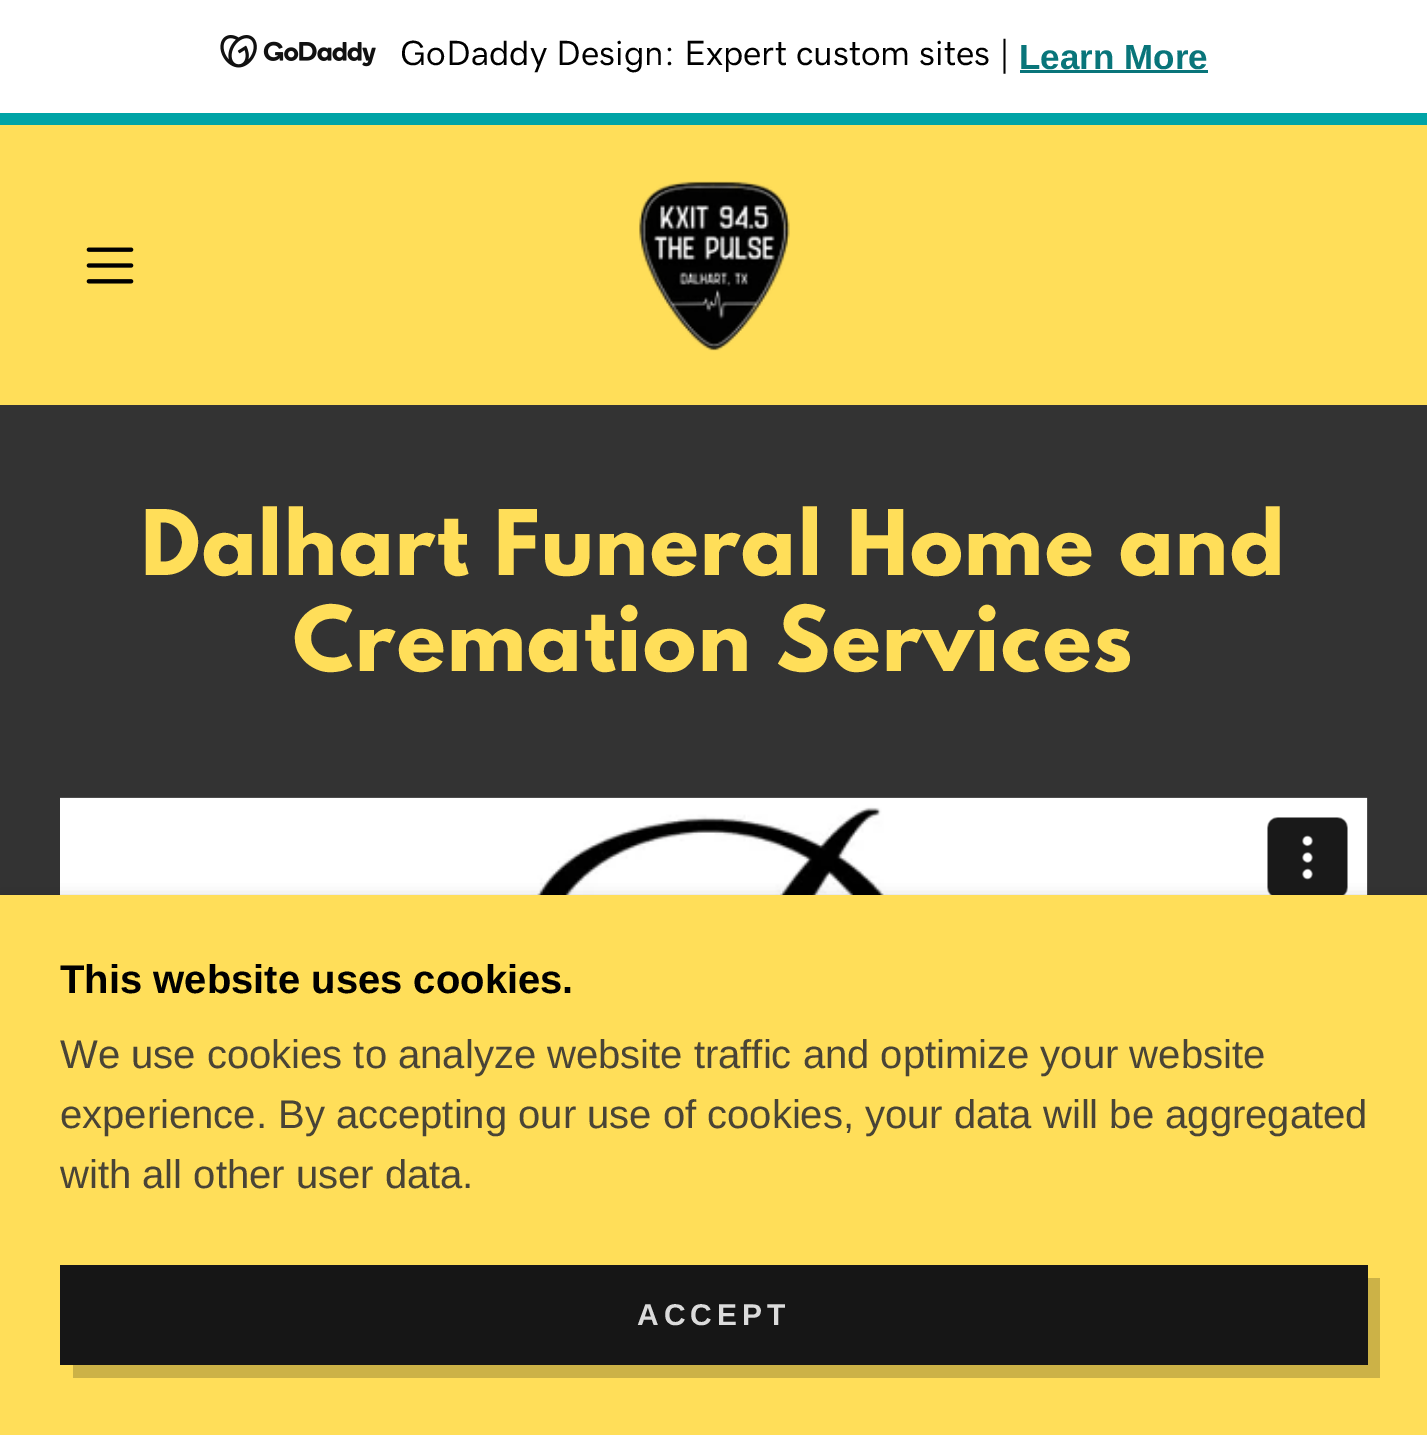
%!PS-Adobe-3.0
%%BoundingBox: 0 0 1427 1435
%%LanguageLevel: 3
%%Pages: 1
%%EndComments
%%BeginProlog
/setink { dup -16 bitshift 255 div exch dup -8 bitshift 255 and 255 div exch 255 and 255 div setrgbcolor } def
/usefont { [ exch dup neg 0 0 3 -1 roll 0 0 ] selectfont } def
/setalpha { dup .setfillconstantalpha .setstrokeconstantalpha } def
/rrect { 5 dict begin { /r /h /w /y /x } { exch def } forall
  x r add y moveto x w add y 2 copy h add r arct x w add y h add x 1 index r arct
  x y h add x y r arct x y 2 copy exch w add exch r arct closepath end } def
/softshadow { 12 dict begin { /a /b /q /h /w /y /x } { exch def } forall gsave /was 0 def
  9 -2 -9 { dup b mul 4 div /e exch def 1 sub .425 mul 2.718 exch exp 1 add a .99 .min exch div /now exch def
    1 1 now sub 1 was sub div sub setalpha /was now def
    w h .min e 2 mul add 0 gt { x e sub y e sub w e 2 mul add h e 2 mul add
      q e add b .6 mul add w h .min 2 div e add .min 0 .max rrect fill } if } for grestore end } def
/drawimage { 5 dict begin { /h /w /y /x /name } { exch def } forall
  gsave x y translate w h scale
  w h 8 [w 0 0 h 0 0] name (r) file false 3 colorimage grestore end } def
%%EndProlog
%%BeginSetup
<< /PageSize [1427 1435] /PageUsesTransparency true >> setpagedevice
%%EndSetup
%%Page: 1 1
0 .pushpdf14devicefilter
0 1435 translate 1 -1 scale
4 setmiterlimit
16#FFDE59 setink
0 0 1427 1435 rectfill
16#FFFFFF setink
0 0 1427 113 rectfill
16#00A4A6 setink
0 113 1427 12 rectfill
(img1.raw) 220 35 156 33 drawimage
/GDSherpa-Medium 35 usefont
16#000000 setink
400 65 moveto (GoDaddy Design: Expert custom sites |) show
/LiberationSans-Bold 35 usefont
16#09757A setink
1019 69 moveto (Learn More) show
1020 70 188 3 rectfill
(img2.raw) 86 247 48 37 drawimage
(img3.raw) 639 181 151 170 drawimage
16#333333 setink
0 405 1427 490 rectfill
/LeagueSpartan-Bold 80 usefont
16#FFDE59 setink
141 575 moveto 1.8 0 (Dalhart Funeral Home and) ashow
293 671 moveto 1.8 0 (Cremation Services) ashow
(img4.raw) 60 797 1308 98 drawimage
16#000000 setink
0 900 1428 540 0 7.5 0.3 softshadow
16#FFDE59 setink
0 895 1427 540 rectfill
/LiberationSans-Bold 40 usefont
16#000000 setink
60 993 moveto (This website uses cookies.) show
/LiberationSans-Regular 40 usefont
16#494436 setink
[
    [(We use cookies to analyze website traffic and optimize your website) 60 1068]
    [(experience. By accepting our use of cookies, your data will be aggregated) 60 1128]
    [(with all other user data.) 60 1188]
] { aload pop moveto show } forall
16#161616 setink
60 1265 1308 100 rectfill
16#CCB247 setink
73 1365 moveto 73 1378 lineto 1380 1378 lineto 1380 1278 lineto 1368 1278 lineto 1368 1365 lineto closepath fill
/LiberationSans-Bold 30 usefont
16#DBDBDB setink
637 1325 moveto 5 0 (ACCEPT) ashow
.poppdf14devicefilter showpage
%%EOF
